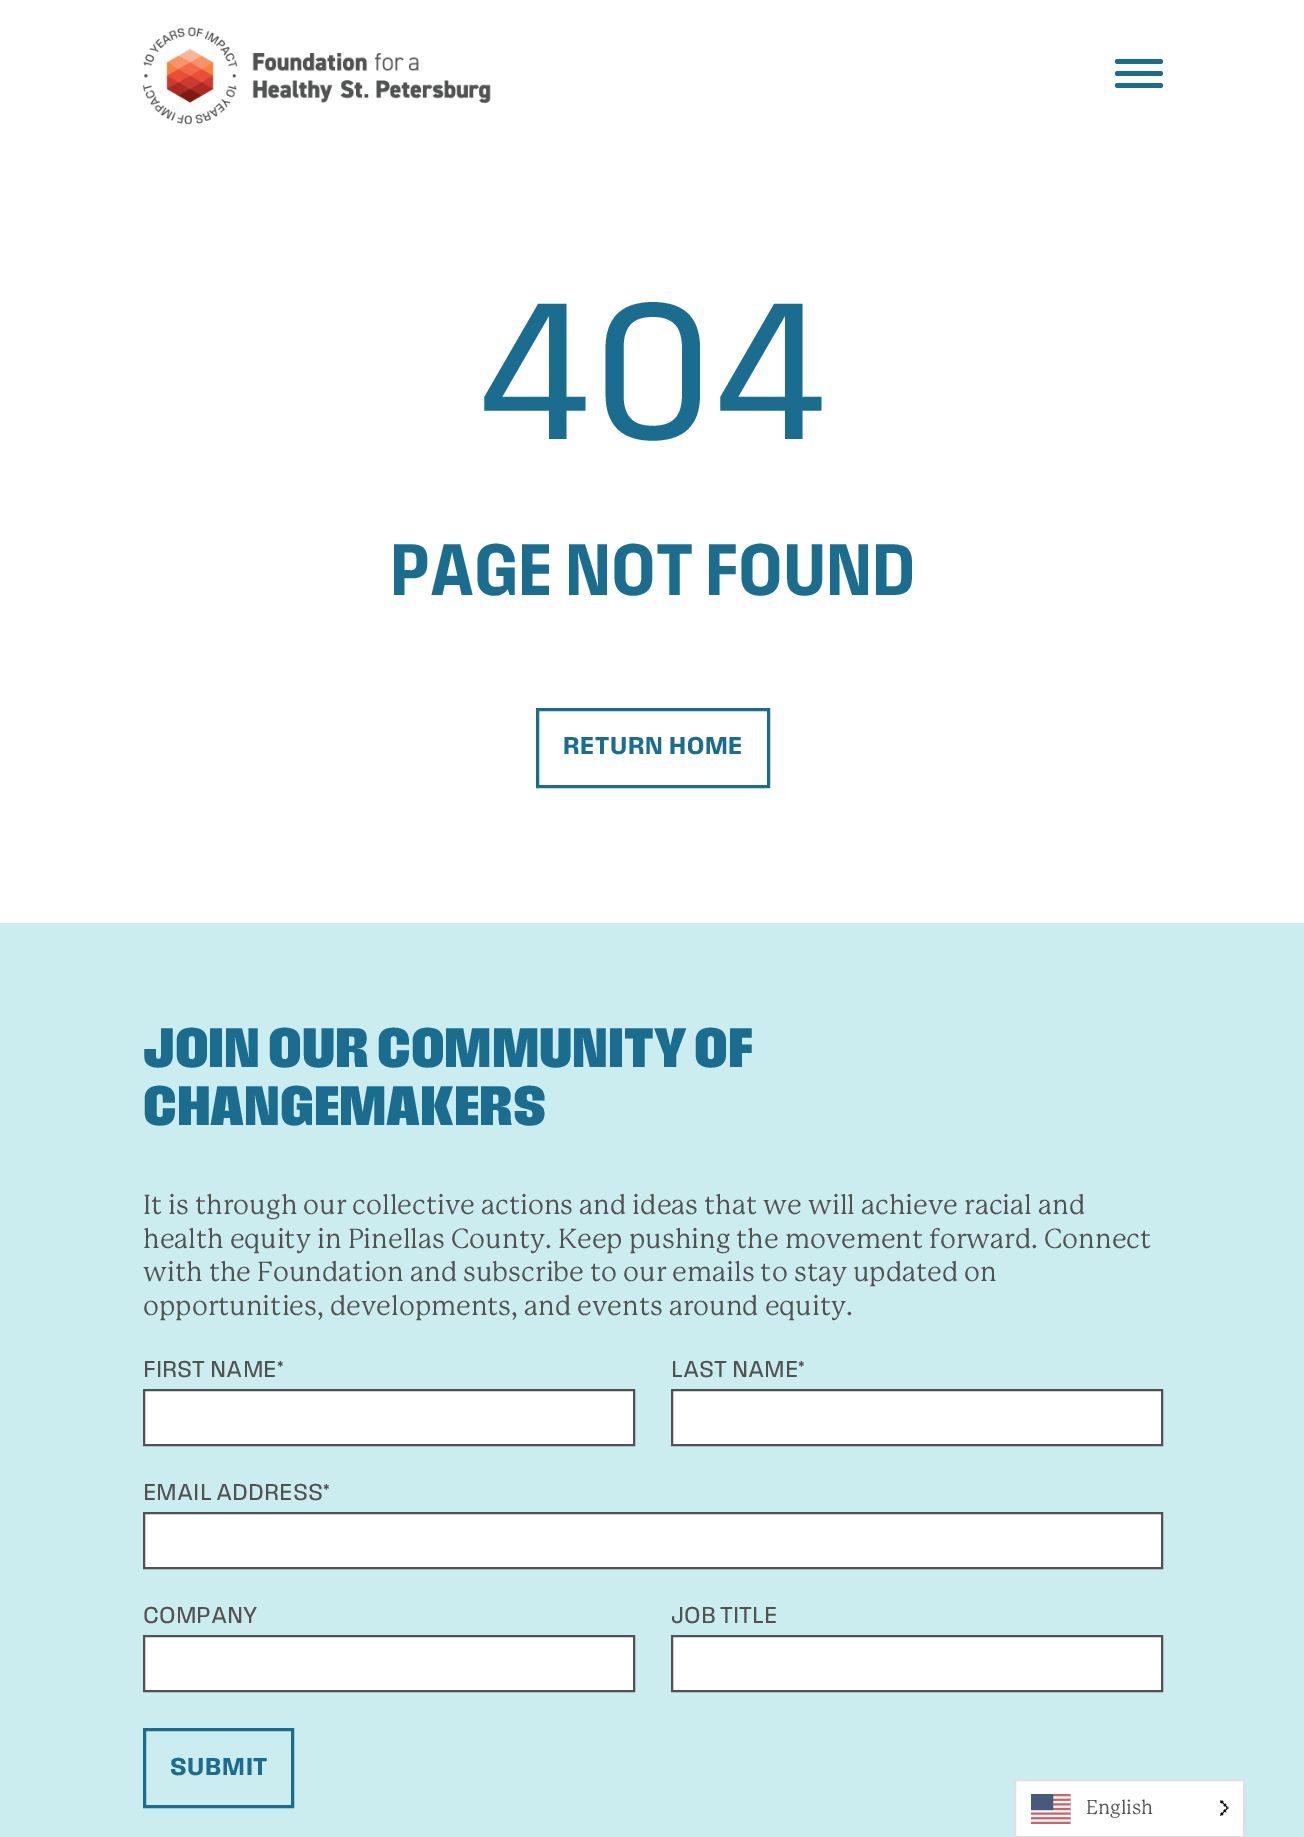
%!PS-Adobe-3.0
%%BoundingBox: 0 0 1304 1837
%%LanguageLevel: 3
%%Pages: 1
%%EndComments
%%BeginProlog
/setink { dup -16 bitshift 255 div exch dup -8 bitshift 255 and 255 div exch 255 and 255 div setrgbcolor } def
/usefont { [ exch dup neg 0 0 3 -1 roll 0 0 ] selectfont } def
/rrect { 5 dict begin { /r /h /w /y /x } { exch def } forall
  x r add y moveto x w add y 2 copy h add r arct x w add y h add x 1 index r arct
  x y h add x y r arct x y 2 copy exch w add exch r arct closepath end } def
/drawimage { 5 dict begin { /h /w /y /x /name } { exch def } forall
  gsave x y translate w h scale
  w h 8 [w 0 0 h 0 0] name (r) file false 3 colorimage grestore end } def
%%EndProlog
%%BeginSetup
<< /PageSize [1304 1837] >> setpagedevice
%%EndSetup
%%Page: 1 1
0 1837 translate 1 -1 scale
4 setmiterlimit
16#FFFFFF setink
0 0 1304 1837 rectfill
(img1.raw) 142 27 349 98 drawimage
16#1A6D8E setink
1115 71 48 5 2.5 rrect fill
1115 59 48 5 2.5 rrect fill
1115 83 48 5 2.5 rrect fill
/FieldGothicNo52-Regular 204 usefont
476 439 moveto (404) show
/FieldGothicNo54-SemiBold 76.5 usefont
390 595 moveto (PAGE NOT FOUND) show
3 setlinewidth
537.5 709.5 231 77 rectstroke
/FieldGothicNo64-SemiBold 25.5 usefont
563 754 moveto 0.75 0 (RETURN HOME) ashow
16#CCEDF0 setink
0 923 1304 914 rectfill
/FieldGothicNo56-Bold 58.5 usefont
16#1A6D8E setink
143 1067 moveto (JOIN OUR COMMUNITY OF) show
143 1125 moveto (CHANGEMAKERS) show
/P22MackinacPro-Regular 27 usefont
16#515151 setink
[
    [(It is through our collective actions and ideas that we will achieve racial and) 143 1214]
    [(health equity in Pinellas County. Keep pushing the movement forward. Connect) 143 1248]
    [(with the Foundation and subscribe to our emails to stay updated on) 143 1281]
    [(opportunities, developments, and events around equity.) 143 1315]
] { aload pop moveto show } forall
/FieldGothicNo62-Regular 24 usefont
143 1377 moveto (FIRST NAME*) show
16#FFFFFF setink
144 1390 moveto 634 1390 lineto 634 1445 lineto 144 1445 lineto closepath gsave fill grestore
16#515151 setink
2 setlinewidth
stroke
671 1377 moveto (LAST NAME*) show
16#FFFFFF setink
672 1390 moveto 1162 1390 lineto 1162 1445 lineto 672 1445 lineto closepath gsave fill grestore
16#515151 setink
stroke
143 1500 moveto (EMAIL ADDRESS*) show
16#FFFFFF setink
144 1513 moveto 1162 1513 lineto 1162 1568 lineto 144 1568 lineto closepath gsave fill grestore
16#515151 setink
stroke
143 1623 moveto (COMPANY) show
16#FFFFFF setink
144 1636 moveto 634 1636 lineto 634 1691 lineto 144 1691 lineto closepath gsave fill grestore
16#515151 setink
stroke
671 1623 moveto (JOB TITLE) show
16#FFFFFF setink
672 1636 moveto 1162 1636 lineto 1162 1691 lineto 672 1691 lineto closepath gsave fill grestore
16#515151 setink
stroke
16#1A6D8E setink
3 setlinewidth
144.5 1729.5 148 77 rectstroke
/FieldGothicNo64-SemiBold 25.5 usefont
170 1775 moveto 0.75 0 (SUBMIT) ashow
16#FFFFFF setink
1015 1780 moveto 1244 1780 lineto 1244 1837 lineto 1015 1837 lineto closepath gsave fill grestore
16#E0E0E0 setink
2 setlinewidth
stroke
(img2.raw) 1031 1794 40 30 drawimage
/P22MackinacPro-Regular 19.5 usefont
16#515151 setink
1086 1814 moveto (English) show
(img3.raw) 1220 1800 9 16 drawimage
showpage
%%EOF
